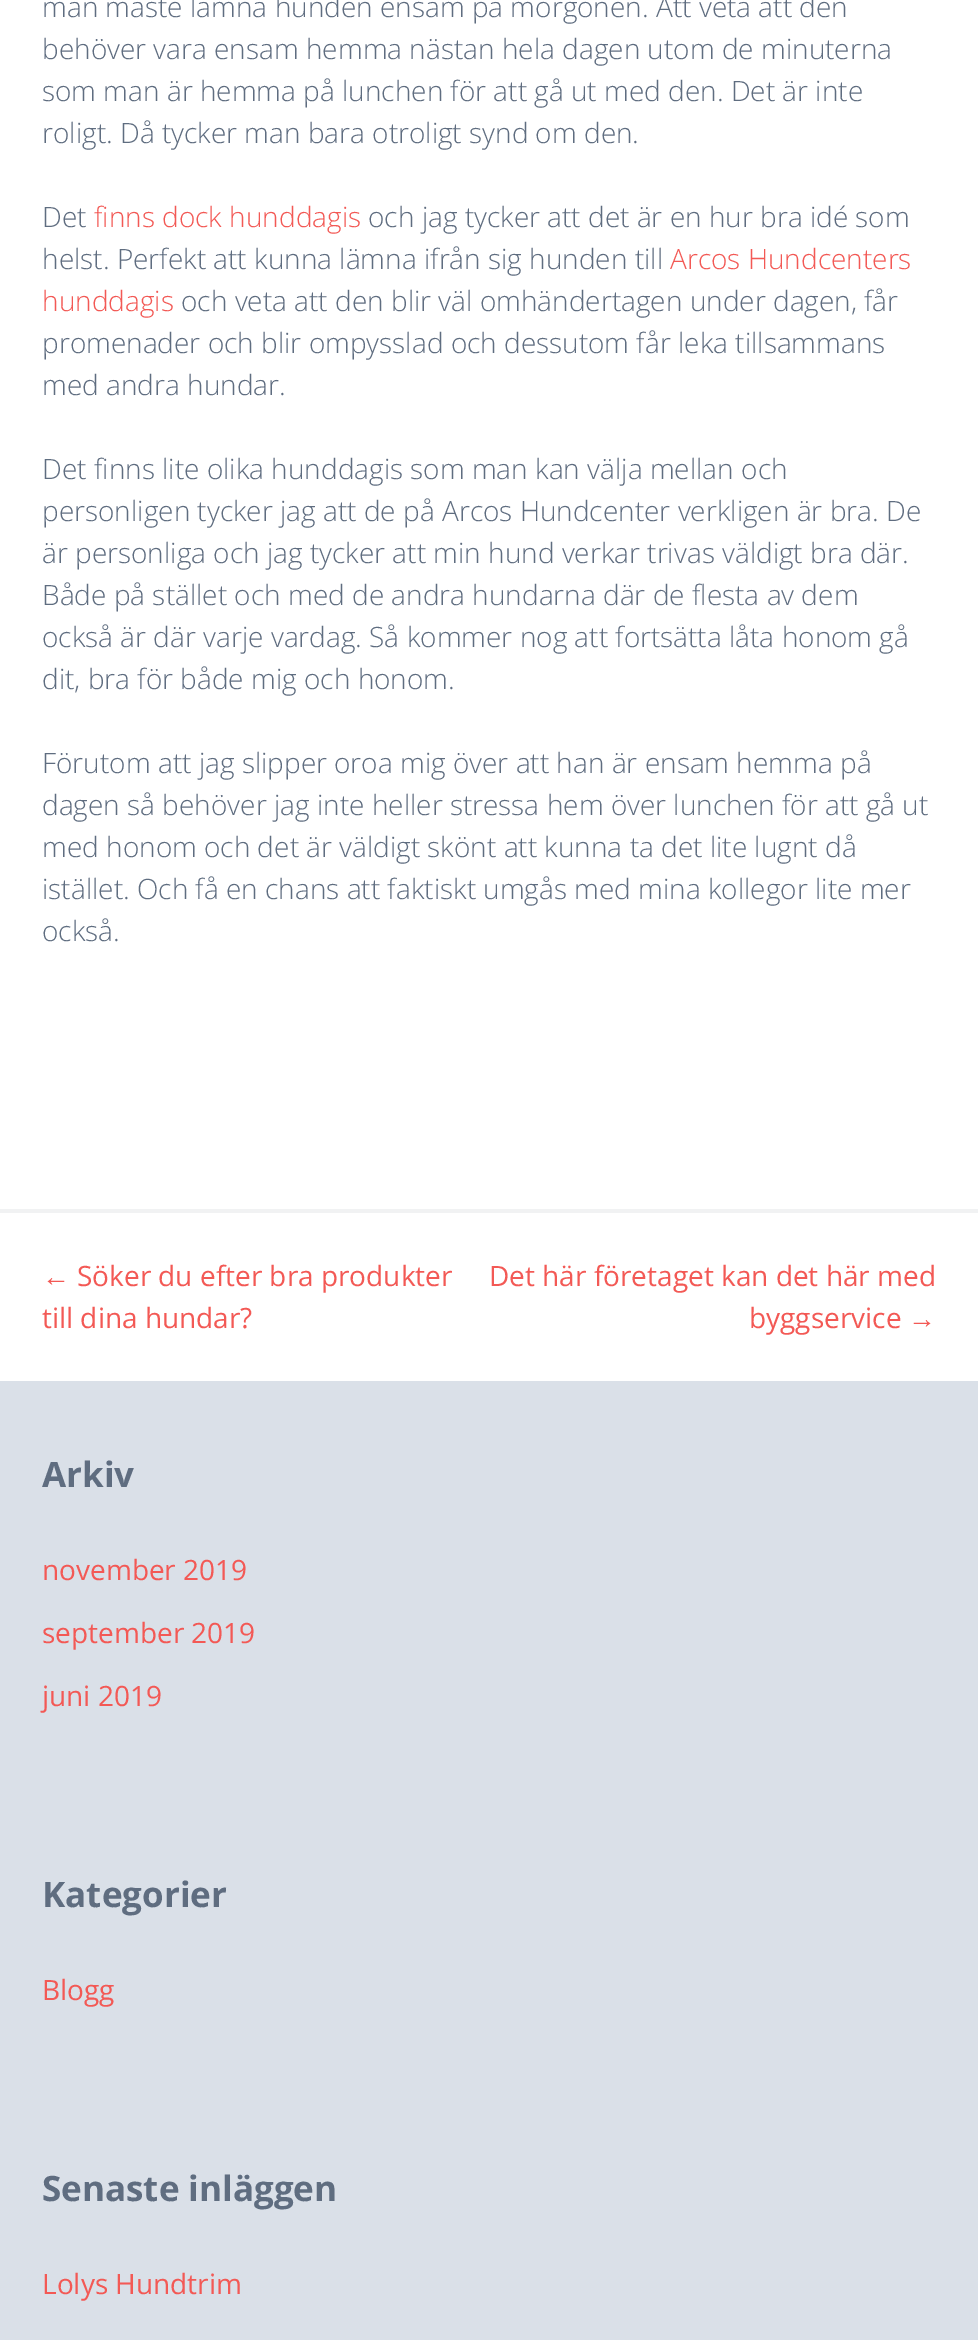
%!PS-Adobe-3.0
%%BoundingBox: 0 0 978 2340
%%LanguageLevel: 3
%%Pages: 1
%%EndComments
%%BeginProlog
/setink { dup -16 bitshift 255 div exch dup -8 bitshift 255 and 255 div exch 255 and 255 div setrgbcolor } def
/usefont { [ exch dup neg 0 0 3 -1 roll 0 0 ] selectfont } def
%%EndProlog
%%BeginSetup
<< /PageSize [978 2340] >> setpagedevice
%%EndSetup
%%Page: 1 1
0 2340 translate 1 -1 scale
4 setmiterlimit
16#FFFFFF setink
0 0 978 2340 rectfill
16#F1F2F3 setink
0 1209 978 4 rectfill
/OpenSans-Light 28 usefont
16#5F6D80 setink
[
    [(man måste lämna hunden ensam på morgonen. Att veta att den) 42 17]
    [(behöver vara ensam hemma nästan hela dagen utom de minuterna) 42 59]
    [(som man är hemma på lunchen för att gå ut med den. Det är inte) 42 101]
    [(roligt. Då tycker man bara otroligt synd om den.) 42 143]
    [(Det) 42 227]
] { aload pop moveto show } forall
16#F35955 setink
94 227 moveto (finns dock hunddagis) show
16#5F6D80 setink
368 227 moveto (och jag tycker att det är en hur bra idé som) show
42 269 moveto (helst. Perfekt att kunna lämna ifrån sig hunden till) show
16#F35955 setink
670 269 moveto (Arcos Hundcenters) show
42 311 moveto (hunddagis) show
16#5F6D80 setink
[
    [(och veta att den blir väl omhändertagen under dagen, får) 181 311]
    [(promenader och blir ompysslad och dessutom får leka tillsammans) 42 353]
    [(med andra hundar.) 42 395]
    [(Det finns lite olika hunddagis som man kan välja mellan och) 42 479]
    [(personligen tycker jag att de på Arcos Hundcenter verkligen är bra. De) 42 521]
    [(är personliga och jag tycker att min hund verkar trivas väldigt bra där.) 42 563]
    [(Både på stället och med de andra hundarna där de flesta av dem) 42 605]
    [(också är där varje vardag. Så kommer nog att fortsätta låta honom gå) 42 647]
    [(dit, bra för både mig och honom.) 42 689]
    [(Förutom att jag slipper oroa mig över att han är ensam hemma på) 42 773]
    [(dagen så behöver jag inte heller stressa hem över lunchen för att gå ut) 42 815]
    [(med honom och det är väldigt skönt att kunna ta det lite lugnt då) 42 857]
    [(istället. Och få en chans att faktiskt umgås med mina kollegor lite mer) 42 899]
    [(också.) 42 941]
] { aload pop moveto show } forall
/LiberationSans-Regular 28 usefont
16#F35955 setink
42 1286 moveto (←) show
/OpenSans-Regular 28 usefont
[
    [(Söker du efter bra produkter) 77 1286]
    [(till dina hundar?) 42 1328]
    [(Det här företaget kan det här med) 489 1286]
    [(byggservice) 749 1328]
] { aload pop moveto show } forall
/LiberationSans-Regular 28 usefont
908 1328 moveto (→) show
16#DAE0E8 setink
0 1381 978 959 rectfill
/OpenSans-Bold 35 usefont
16#5F6D80 setink
42 1487 moveto (Arkiv) show
/OpenSans-Regular 28 usefont
16#F35955 setink
[
    [(november 2019) 42 1580]
    [(september 2019) 42 1643]
    [(juni 2019) 42 1706]
] { aload pop moveto show } forall
/OpenSans-Bold 35 usefont
16#5F6D80 setink
42 1907 moveto (Kategorier) show
/OpenSans-Regular 28 usefont
16#F35955 setink
42 2000 moveto (Blogg) show
/OpenSans-Bold 35 usefont
16#5F6D80 setink
42 2201 moveto (Senaste inläggen) show
/OpenSans-Regular 28 usefont
16#F35955 setink
42 2294 moveto (Lolys Hundtrim) show
showpage
%%EOF
